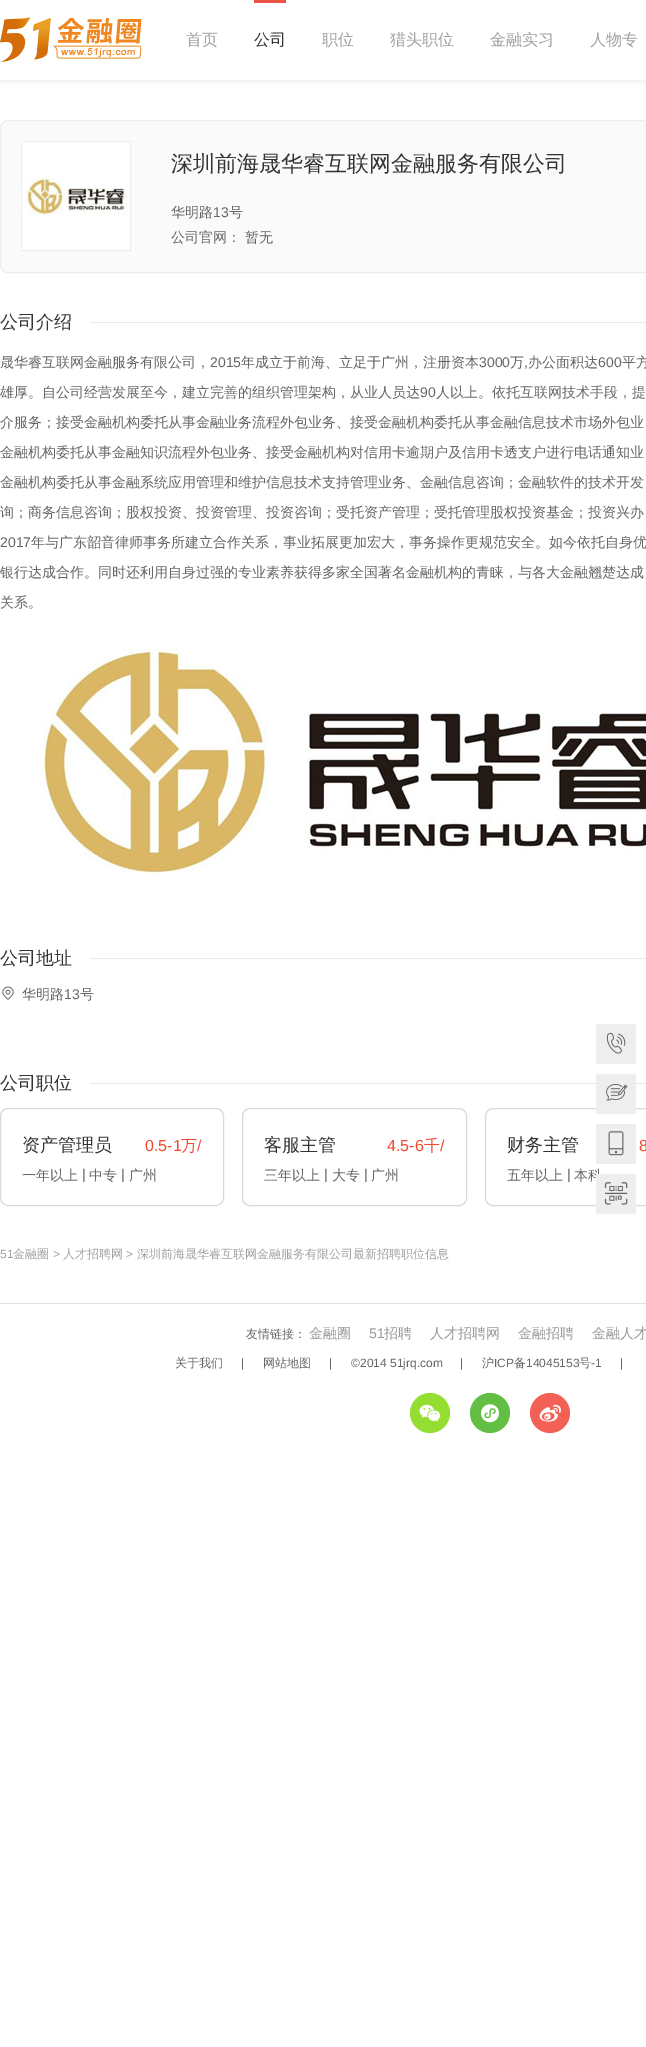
%!PS-Adobe-3.0
%%BoundingBox: 0 0 646 2047
%%LanguageLevel: 3
%%Pages: 1
%%EndComments
%%BeginProlog
/setink { dup -16 bitshift 255 div exch dup -8 bitshift 255 and 255 div exch 255 and 255 div setrgbcolor } def
/usefont { [ exch dup neg 0 0 3 -1 roll 0 0 ] selectfont } def
/setalpha { dup .setfillconstantalpha .setstrokeconstantalpha } def
/disc { newpath 0 360 arc closepath } def
/rrect { 5 dict begin { /r /h /w /y /x } { exch def } forall
  x r add y moveto x w add y 2 copy h add r arct x w add y h add x 1 index r arct
  x y h add x y r arct x y 2 copy exch w add exch r arct closepath end } def
/softshadow { 12 dict begin { /a /b /q /h /w /y /x } { exch def } forall gsave /was 0 def
  9 -2 -9 { dup b mul 4 div /e exch def 1 sub .425 mul 2.718 exch exp 1 add a .99 .min exch div /now exch def
    1 1 now sub 1 was sub div sub setalpha /was now def
    w h .min e 2 mul add 0 gt { x e sub y e sub w e 2 mul add h e 2 mul add
      q e add b .6 mul add w h .min 2 div e add .min 0 .max rrect fill } if } for grestore end } def
/drawimage { 5 dict begin { /h /w /y /x /name } { exch def } forall
  gsave x y translate w h scale
  w h 8 [w 0 0 h 0 0] name (r) file false 3 colorimage grestore end } def
%%EndProlog
%%BeginSetup
<< /PageSize [646 2047] /PageUsesTransparency true >> setpagedevice
%%EndSetup
%%Page: 1 1
0 .pushpdf14devicefilter
0 2047 translate 1 -1 scale
4 setmiterlimit
16#FFFFFF setink
0 0 646 2047 rectfill
gsave
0 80 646 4 rectclip
16#060001 setink
0 3 646 80 0 3 0.05 softshadow
grestore
(img1.raw) 0 17 142 45 drawimage
/WenQuanYiZenHei-Medium 16 usefont
16#A0A0A0 setink
186 45 moveto (首页) show
16#ED5447 setink
254 0 32 3 rectfill
16#333333 setink
254 45 moveto (公司) show
16#A0A0A0 setink
[
    [(职位) 322 45]
    [(猎头职位) 390 45]
    [(金融实习) 490 45]
    [(人物专) 590 45]
] { aload pop moveto show } forall
16#FAFAFA setink
0.5 120.5 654 152 7.5 rrect gsave fill grestore
16#EDEDED setink
stroke
21.5 141.5 109 109 rectstroke
(img2.raw) 22 142 108 108 drawimage
/WenQuanYiZenHei-Medium 22 usefont
16#333333 setink
171 171 moveto (深圳前海晟华睿互联网金融服务有限公司) show
/WenQuanYiZenHei-Medium 14 usefont
16#656565 setink
171 217 moveto (华明路) show
/LiberationSans-Regular 14 usefont
213 217 moveto (13) show
/WenQuanYiZenHei-Medium 14 usefont
[
    [(号) 229 217]
    [(公司官网：) 171 242]
    [(暂无) 245 242]
] { aload pop moveto show } forall
/WenQuanYiZenHei-Medium 18 usefont
16#333333 setink
0 328 moveto (公司介绍) show
16#EAEAEA setink
90 322 556 1 rectfill
/WenQuanYiZenHei-Medium 14 usefont
16#656565 setink
0 367 moveto (晟华睿互联网金融服务有限公司，) show
/LiberationSans-Regular 14 usefont
210 367 moveto (2015) show
/WenQuanYiZenHei-Medium 14 usefont
241 367 moveto (年成立于前海、立足于广州，注册资本) show
/LiberationSans-Regular 14 usefont
479 367 moveto (3000) show
/WenQuanYiZenHei-Medium 14 usefont
510 367 moveto (万) show
/LiberationSans-Regular 14 usefont
524 367 moveto (,) show
/WenQuanYiZenHei-Medium 14 usefont
528 367 moveto (办公面积达) show
/LiberationSans-Regular 14 usefont
598 367 moveto (600) show
/WenQuanYiZenHei-Medium 14 usefont
622 367 moveto (平方) show
0 397 moveto (雄厚。自公司经营发展至今，建立完善的组织管理架构，从业人员达) show
/LiberationSans-Regular 14 usefont
420 397 moveto (90) show
/WenQuanYiZenHei-Medium 14 usefont
[
    [(人以上。依托互联网技术手段，提) 436 397]
    [(介服务；接受金融机构委托从事金融业务流程外包业务、接受金融机构委托从事金融信息技术市场外包业) 0 427]
    [(金融机构委托从事金融知识流程外包业务、接受金融机构对信用卡逾期户及信用卡透支户进行电话通知业) 0 457]
    [(金融机构委托从事金融系统应用管理和维护信息技术支持管理业务、金融信息咨询；金融软件的技术开发) 0 487]
    [(询；商务信息咨询；股权投资、投资管理、投资咨询；受托资产管理；受托管理股权投资基金；投资兴办) 0 517]
] { aload pop moveto show } forall
/LiberationSans-Regular 14 usefont
0 547 moveto (2017) show
/WenQuanYiZenHei-Medium 14 usefont
[
    [(年与广东韶音律师事务所建立合作关系，事业拓展更加宏大，事务操作更规范安全。如今依托自身优) 31 547]
    [(银行达成合作。同时还利用自身过强的专业素养获得多家全国著名金融机构的青睐，与各大金融翘楚达成) 0 577]
    [(关系。) 0 607]
] { aload pop moveto show } forall
(img3.raw) 43 649 603 224 drawimage
/WenQuanYiZenHei-Medium 18 usefont
16#333333 setink
0 964 moveto (公司地址) show
16#EAEAEA setink
90 958 556 1 rectfill
(img4.raw) 2 986 12 14 drawimage
/WenQuanYiZenHei-Medium 14 usefont
16#656565 setink
22 999 moveto (华明路) show
/LiberationSans-Regular 14 usefont
64 999 moveto (13) show
/WenQuanYiZenHei-Medium 14 usefont
80 999 moveto (号) show
/WenQuanYiZenHei-Medium 18 usefont
16#333333 setink
0 1089 moveto (公司职位) show
16#EAEAEA setink
90 1083 556 1 rectfill
16#D9D9D9 setink
0.5 1108.5 223 97 7.5 rrect stroke
16#333333 setink
22 1151 moveto (资产管理员) show
/LiberationSans-Regular 16 usefont
16#F14A30 setink
145 1151 moveto (0.5-1) show
/WenQuanYiZenHei-Medium 16 usefont
181 1151 moveto (万) show
/LiberationSans-Regular 16 usefont
197 1151 moveto (/) show
/WenQuanYiZenHei-Medium 14 usefont
16#656565 setink
22 1180 moveto (一年以上) show
/LiberationSans-Regular 14 usefont
82 1179 moveto (|) show
/WenQuanYiZenHei-Medium 14 usefont
89 1180 moveto (中专) show
/LiberationSans-Regular 14 usefont
121 1179 moveto (|) show
/WenQuanYiZenHei-Medium 14 usefont
129 1180 moveto (广州) show
16#D9D9D9 setink
242.5 1108.5 224 97 7.5 rrect stroke
/WenQuanYiZenHei-Medium 18 usefont
16#333333 setink
264 1151 moveto (客服主管) show
/LiberationSans-Regular 16 usefont
16#F14A30 setink
387 1151 moveto (4.5-6) show
/WenQuanYiZenHei-Medium 16 usefont
424 1151 moveto (千) show
/LiberationSans-Regular 16 usefont
440 1151 moveto (/) show
/WenQuanYiZenHei-Medium 14 usefont
16#656565 setink
264 1180 moveto (三年以上) show
/LiberationSans-Regular 14 usefont
324 1179 moveto (|) show
/WenQuanYiZenHei-Medium 14 usefont
332 1180 moveto (大专) show
/LiberationSans-Regular 14 usefont
364 1179 moveto (|) show
/WenQuanYiZenHei-Medium 14 usefont
371 1180 moveto (广州) show
16#D9D9D9 setink
485.5 1108.5 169 97 7.5 rrect stroke
/WenQuanYiZenHei-Medium 18 usefont
16#333333 setink
507 1151 moveto (财务主管) show
/LiberationSans-Regular 16 usefont
16#F14A30 setink
639 1151 moveto (8) show
/WenQuanYiZenHei-Medium 14 usefont
16#656565 setink
507 1180 moveto (五年以上) show
/LiberationSans-Regular 14 usefont
567 1179 moveto (|) show
/WenQuanYiZenHei-Medium 14 usefont
574 1180 moveto (本科) show
/LiberationSans-Regular 12 usefont
16#A0A0A0 setink
0 1258 moveto (51) show
/WenQuanYiZenHei-Medium 12 usefont
13 1258 moveto (金融圈) show
/LiberationSans-Regular 12 usefont
53 1258 moveto (>) show
/WenQuanYiZenHei-Medium 12 usefont
63 1258 moveto (人才招聘网) show
/LiberationSans-Regular 12 usefont
126 1258 moveto (>) show
/WenQuanYiZenHei-Medium 12 usefont
137 1258 moveto (深圳前海晟华睿互联网金融服务有限公司最新招聘职位信息) show
16#EEEEEE setink
596 1024 40 40 2 rrect fill
(img5.raw) 606 1032 20 22 drawimage
596 1074 40 40 2 rrect fill
(img6.raw) 606 1083 22 18 drawimage
596 1124 40 40 2 rrect fill
(img7.raw) 608 1131 16 25 drawimage
596 1174 40 40 2 rrect fill
(img8.raw) 604 1182 24 23 drawimage
16#E1E1E1 setink
0 1303 646 1 rectfill
16#656565 setink
246 1338 moveto (友情链接：) show
/WenQuanYiZenHei-Medium 14 usefont
16#999999 setink
309 1338 moveto (金融圈) show
/LiberationSans-Regular 14 usefont
369 1338 moveto (51) show
/WenQuanYiZenHei-Medium 14 usefont
[
    [(招聘) 384 1338]
    [(人才招聘网) 430 1338]
    [(金融招聘) 518 1338]
    [(金融人才) 592 1338]
] { aload pop moveto show } forall
/WenQuanYiZenHei-Medium 12 usefont
16#656565 setink
175 1367 moveto (关于我们) show
/LiberationSans-Regular 12 usefont
241 1367 moveto (|) show
/WenQuanYiZenHei-Medium 12 usefont
263 1367 moveto (网站地图) show
/LiberationSans-Regular 12 usefont
[
    [(|) 329 1367]
    [(©2014 51jrq.com) 351 1367]
    [(|) 460 1367]
] { aload pop moveto show } forall
/WenQuanYiZenHei-Medium 12 usefont
482 1367 moveto (沪) show
/LiberationSans-Regular 12 usefont
494 1367 moveto (ICP) show
/WenQuanYiZenHei-Medium 12 usefont
514 1367 moveto (备) show
/LiberationSans-Regular 12 usefont
526 1367 moveto (14045153) show
/WenQuanYiZenHei-Medium 12 usefont
579 1367 moveto (号) show
/LiberationSans-Regular 12 usefont
591 1367 moveto (-1) show
620 1367 moveto (|) show
16#93DE31 setink
430 1413 20 disc fill
(img9.raw) 419 1404 22 18 drawimage
16#62BF43 setink
490 1413 20 disc fill
(img10.raw) 481 1404 18 19 drawimage
16#F36056 setink
550 1413 20 disc fill
(img11.raw) 539 1404 22 18 drawimage
.poppdf14devicefilter showpage
%%EOF
